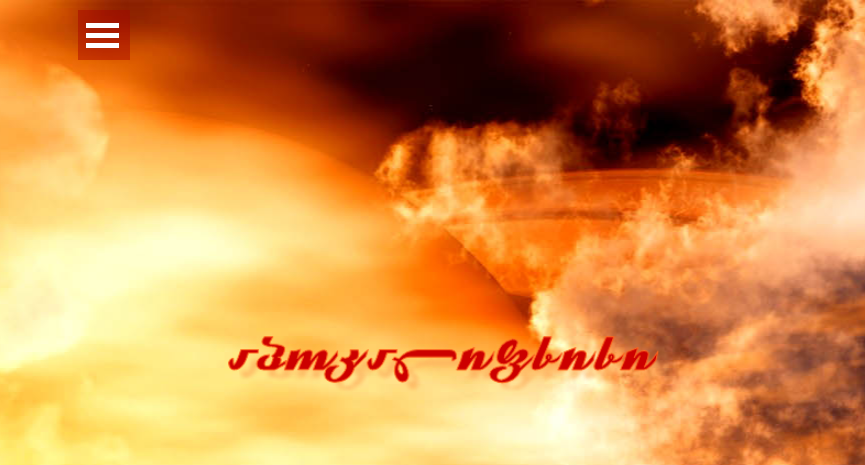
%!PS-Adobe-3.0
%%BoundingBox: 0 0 865 465
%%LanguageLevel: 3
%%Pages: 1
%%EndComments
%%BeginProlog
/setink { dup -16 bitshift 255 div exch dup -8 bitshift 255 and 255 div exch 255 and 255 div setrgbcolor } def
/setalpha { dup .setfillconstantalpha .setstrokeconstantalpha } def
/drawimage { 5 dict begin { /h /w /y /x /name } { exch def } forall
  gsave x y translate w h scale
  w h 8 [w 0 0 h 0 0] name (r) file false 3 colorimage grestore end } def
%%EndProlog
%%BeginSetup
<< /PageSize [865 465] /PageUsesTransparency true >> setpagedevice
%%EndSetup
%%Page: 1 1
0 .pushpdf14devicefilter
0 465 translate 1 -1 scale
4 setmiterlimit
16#FFFFFF setink
0 0 865 465 rectfill
(img1.raw) 0 0 865 465 drawimage
0.45 setalpha
[
    [78 10 52 50 16#A60000]
] { aload pop setink rectfill } forall
1 setalpha
[
    [86 23 33 5 16#FFFFFF]
    [86 33 33 5 16#FFFFFF]
    [86 43 33 5 16#FFFFFF]
] { aload pop setink rectfill } forall
(img2.raw) 228 336 441 56 drawimage
.poppdf14devicefilter showpage
%%EOF
